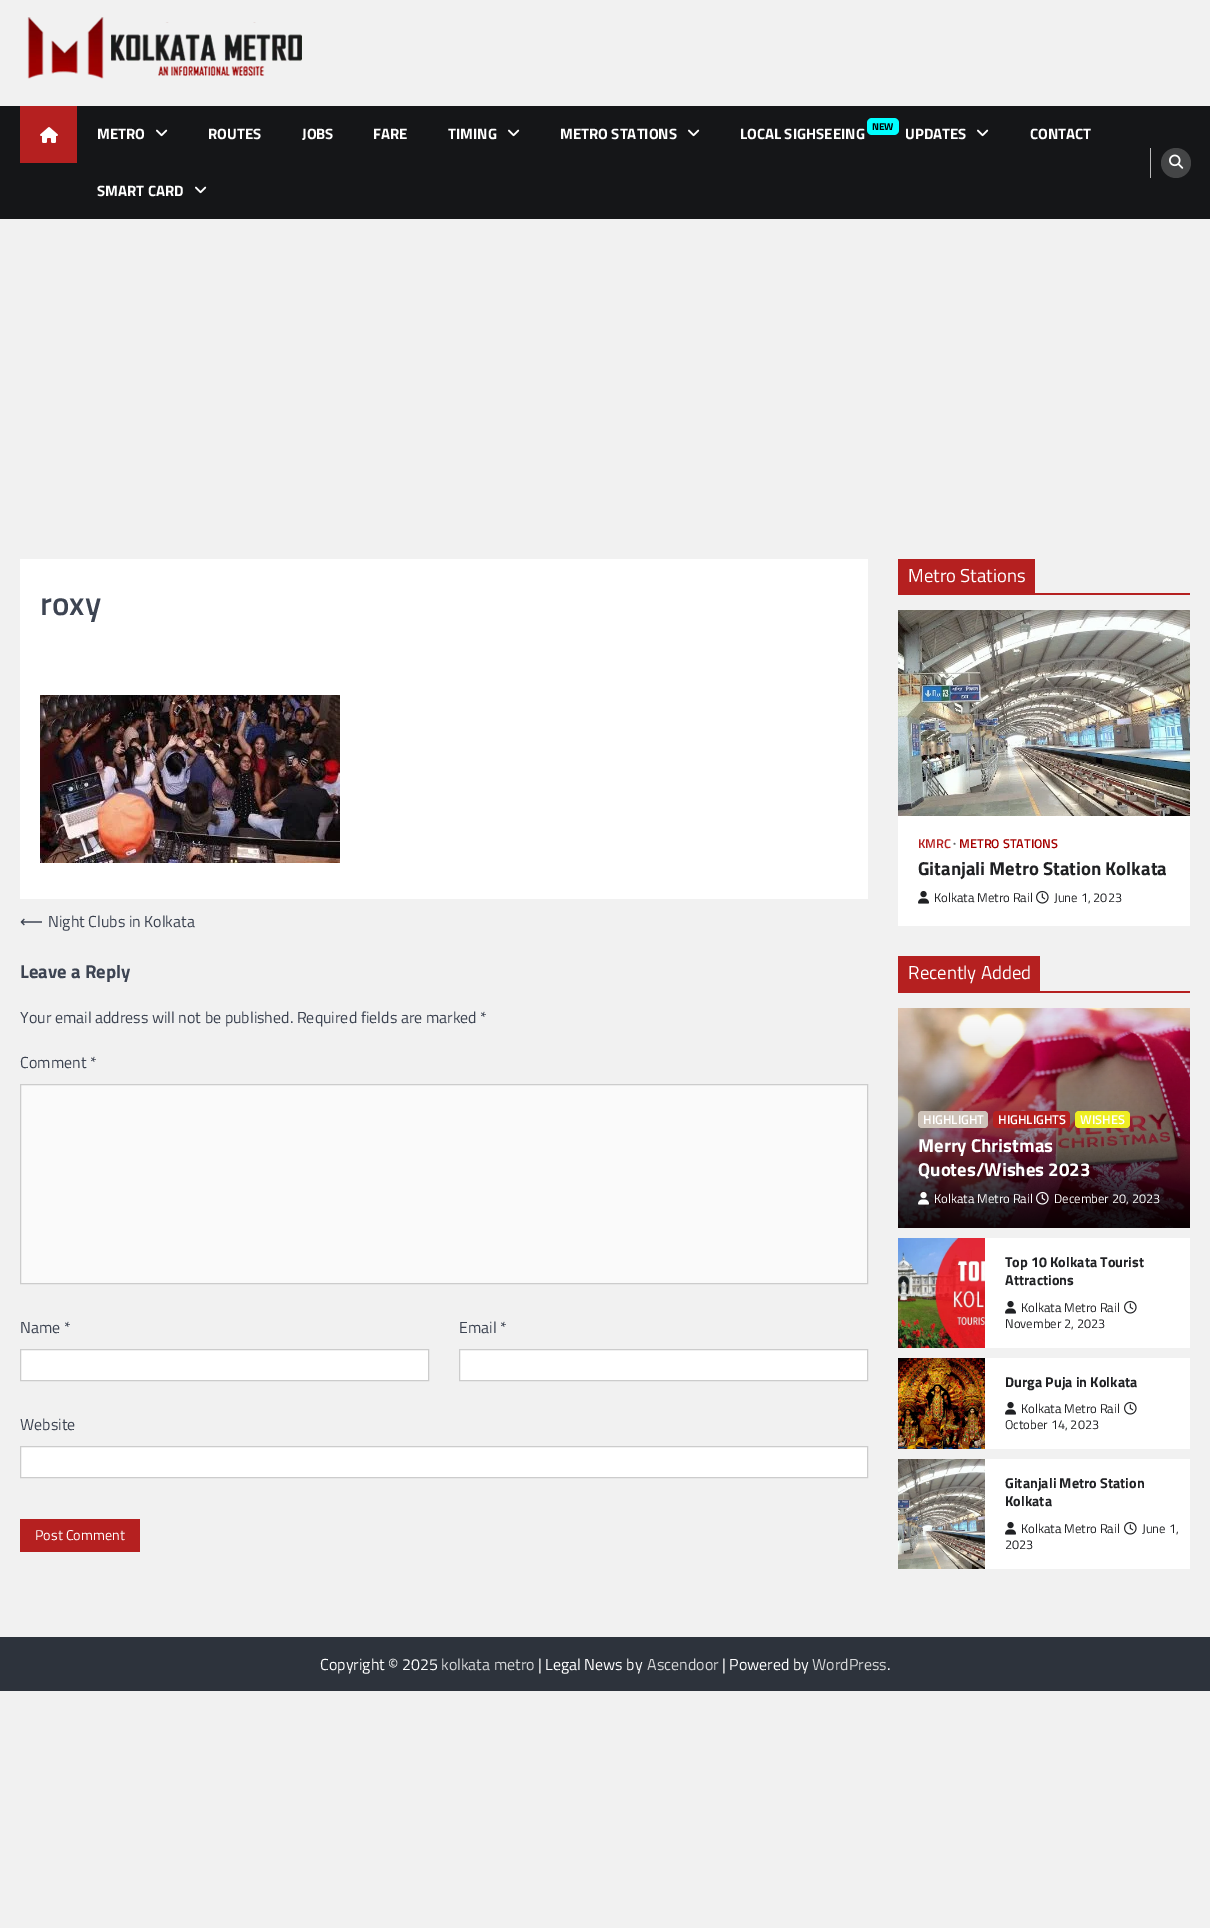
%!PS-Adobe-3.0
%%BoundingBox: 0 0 1210 1928
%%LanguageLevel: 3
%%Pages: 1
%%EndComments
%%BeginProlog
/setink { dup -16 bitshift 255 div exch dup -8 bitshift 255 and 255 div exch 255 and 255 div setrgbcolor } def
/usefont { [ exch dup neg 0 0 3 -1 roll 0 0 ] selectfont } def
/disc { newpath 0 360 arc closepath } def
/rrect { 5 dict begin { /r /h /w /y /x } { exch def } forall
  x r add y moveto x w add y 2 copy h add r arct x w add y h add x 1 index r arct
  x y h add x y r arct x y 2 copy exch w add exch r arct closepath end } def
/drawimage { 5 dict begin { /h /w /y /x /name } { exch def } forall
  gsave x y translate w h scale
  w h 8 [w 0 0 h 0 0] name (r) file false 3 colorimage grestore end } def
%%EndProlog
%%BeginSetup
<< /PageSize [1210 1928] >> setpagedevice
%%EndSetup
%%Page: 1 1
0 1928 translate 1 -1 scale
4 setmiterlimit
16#F1F1F1 setink
0 0 1210 1928 rectfill
(img1.raw) 27 17 275 62 drawimage
16#151618 setink
0 106 1210 113 rectfill
16#B52020 setink
20 106 57 57 rectfill
(img2.raw) 40 127 18 16 drawimage
/TitilliumWeb-Bold 15 usefont
16#FFFFFF setink
97 139 moveto (METRO) show
(img3.raw) 156 129 12 8 drawimage
[
    [(ROUTES) 208 139]
    [(JOBS) 302 139]
    [(FARE) 373 139]
    [(TIMING) 448 139]
] { aload pop moveto show } forall
(img3.raw) 508 129 12 8 drawimage
560 139 moveto (METRO STATIONS) show
(img3.raw) 688 129 12 8 drawimage
16#00FFFF setink
867 118 32 17 5 rrect fill
/TitilliumWeb-Bold 10 usefont
16#000000 setink
872 130 moveto (NEW) show
/TitilliumWeb-Bold 15 usefont
16#FFFFFF setink
740 139 moveto (LOCAL SIGHSEEING) show
905 139 moveto (UPDATES) show
(img3.raw) 977 129 12 8 drawimage
1030 139 moveto (CONTACT) show
97 196 moveto (SMART CARD) show
(img3.raw) 195 186 12 8 drawimage
16#B9B9BA setink
1150 148 1 30 rectfill
16#444546 setink
1176 163 15 disc fill
(img4.raw) 1169 154 15 15 drawimage
16#FFFFFF setink
20 559 848 340 rectfill
/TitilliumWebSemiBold-SemiBold 33 usefont
16#3D4452 setink
40 615 moveto (roxy) show
(img5.raw) 40 695 300 168 drawimage
/DejaVuSans-Regular 16 usefont
20 927 moveto (⟵) show
/TitilliumWeb-Regular 16 usefont
48 927 moveto (Night Clubs in Kolkata) show
/TitilliumWeb-Bold 18.7 usefont
20 978 moveto (Leave a Reply) show
/TitilliumWeb-Regular 16 usefont
20 1023 moveto (Your email address will not be published. Required fields are marked *) show
20 1068 moveto (Comment *) show
16#FAFAFA setink
20.5 1084.5 moveto 867.5 1084.5 lineto 867.5 1283.5 lineto 20.5 1283.5 lineto closepath gsave fill grestore
16#CCCCCC setink
stroke
16#3D4452 setink
20 1333 moveto (Name *) show
16#FFFFFF setink
20.5 1349.5 moveto 428.5 1349.5 lineto 428.5 1380.5 lineto 20.5 1380.5 lineto closepath gsave fill grestore
16#CCCCCC setink
stroke
16#3D4452 setink
459 1333 moveto (Email *) show
16#FFFFFF setink
459.5 1349.5 moveto 867.5 1349.5 lineto 867.5 1380.5 lineto 459.5 1380.5 lineto closepath gsave fill grestore
16#CCCCCC setink
stroke
16#3D4452 setink
20 1430 moveto (Website) show
16#FFFFFF setink
20.5 1446.5 moveto 867.5 1446.5 lineto 867.5 1477.5 lineto 20.5 1477.5 lineto closepath gsave fill grestore
16#CCCCCC setink
stroke
16#B52020 setink
20 1519 120 33 rectfill
/TitilliumWeb-Regular 14.25 usefont
16#FFFFFF setink
35 1540 moveto (Post Comment) show
16#B52020 setink
898 593 292 2 rectfill
898 559 137 34 rectfill
/TitilliumWeb-Regular 18.7 usefont
16#FFFFFF setink
908 582 moveto (Metro Stations) show
898 816 292 110 rectfill
(img6.raw) 898 610 292 206 drawimage
/TitilliumWebSemiBold-SemiBold 12.75 usefont
16#B52020 setink
918 848 moveto (KMRC) show
/LiberationSerif-Bold 12.75 usefont
16#636466 setink
953 848 moveto (∙) show
/TitilliumWebSemiBold-SemiBold 12.75 usefont
16#A50000 setink
959 848 moveto (METRO STATIONS) show
/TitilliumWeb-Bold 18.7 usefont
16#202124 setink
918 875 moveto (Gitanjali Metro Station Kolkata) show
(img7.raw) 918 890 11 14 drawimage
/TitilliumWeb-Regular 12.75 usefont
934 902 moveto (Kolkata Metro Rail) show
(img8.raw) 1036 890 13 14 drawimage
1054 902 moveto (June 1, 2023) show
16#B52020 setink
898 991 292 2 rectfill
898 956 142 35 rectfill
/TitilliumWeb-Regular 18.7 usefont
16#FFFFFF setink
908 979 moveto (Recently Added) show
(img9.raw) 898 1008 292 220 drawimage
16#CEC3B9 setink
918 1111 70 17 4 rrect fill
/TitilliumWebSemiBold-SemiBold 12.75 usefont
16#FFFFFF setink
923 1124 moveto (HIGHLIGHT) show
16#B52020 setink
993 1111 77 17 4 rrect fill
16#FFFFFF setink
998 1124 moveto (HIGHLIGHTS) show
16#EEEE22 setink
1075 1111 55 17 4 rrect fill
16#FFFFFF setink
1080 1124 moveto (WISHES) show
/TitilliumWeb-Bold 18.7 usefont
918 1152 moveto (Merry Christmas) show
918 1176 moveto (Quotes/Wishes 2023) show
(img10.raw) 918 1191 11 14 drawimage
/TitilliumWeb-Regular 12.75 usefont
934 1203 moveto (Kolkata Metro Rail) show
(img11.raw) 1036 1191 13 14 drawimage
1054 1203 moveto (December 20, 2023) show
985 1238 205 110 rectfill
(img12.raw) 898 1238 87 110 drawimage
/TitilliumWeb-Bold 14.25 usefont
16#202124 setink
1005 1267 moveto (Top 10 Kolkata Tourist) show
1005 1285 moveto (Attractions) show
(img7.raw) 1005 1300 11 14 drawimage
/TitilliumWeb-Regular 12.75 usefont
1021 1312 moveto (Kolkata Metro Rail) show
(img8.raw) 1124 1300 13 14 drawimage
1005 1328 moveto (November 2, 2023) show
16#FFFFFF setink
985 1358 205 91 rectfill
(img13.raw) 898 1358 87 91 drawimage
/TitilliumWeb-Bold 14.25 usefont
16#202124 setink
1005 1387 moveto (Durga Puja in Kolkata) show
(img7.raw) 1005 1401 11 14 drawimage
/TitilliumWeb-Regular 12.75 usefont
1021 1413 moveto (Kolkata Metro Rail) show
(img8.raw) 1124 1401 13 14 drawimage
1005 1429 moveto (October 14, 2023) show
16#FFFFFF setink
985 1459 205 110 rectfill
(img14.raw) 898 1459 87 110 drawimage
/TitilliumWeb-Bold 14.25 usefont
16#202124 setink
1005 1488 moveto (Gitanjali Metro Station) show
1005 1506 moveto (Kolkata) show
(img7.raw) 1005 1521 11 14 drawimage
/TitilliumWeb-Regular 12.75 usefont
1021 1533 moveto (Kolkata Metro Rail) show
(img8.raw) 1124 1521 13 14 drawimage
1142 1533 moveto (June 1,) show
1005 1549 moveto (2023) show
16#2D333C setink
0 1637 1210 54 rectfill
/TitilliumWeb-Regular 16 usefont
16#FFFFFF setink
320 1670 moveto (Copyright © 2025) show
16#D5D6D8 setink
441 1670 moveto (kolkata metro) show
16#FFFFFF setink
538 1670 moveto (| Legal News by) show
16#D5D6D8 setink
647 1670 moveto (Ascendoor) show
16#FFFFFF setink
722 1670 moveto (| Powered by) show
16#D5D6D8 setink
812 1670 moveto (WordPress) show
16#FFFFFF setink
887 1670 moveto (.) show
showpage
%%EOF
